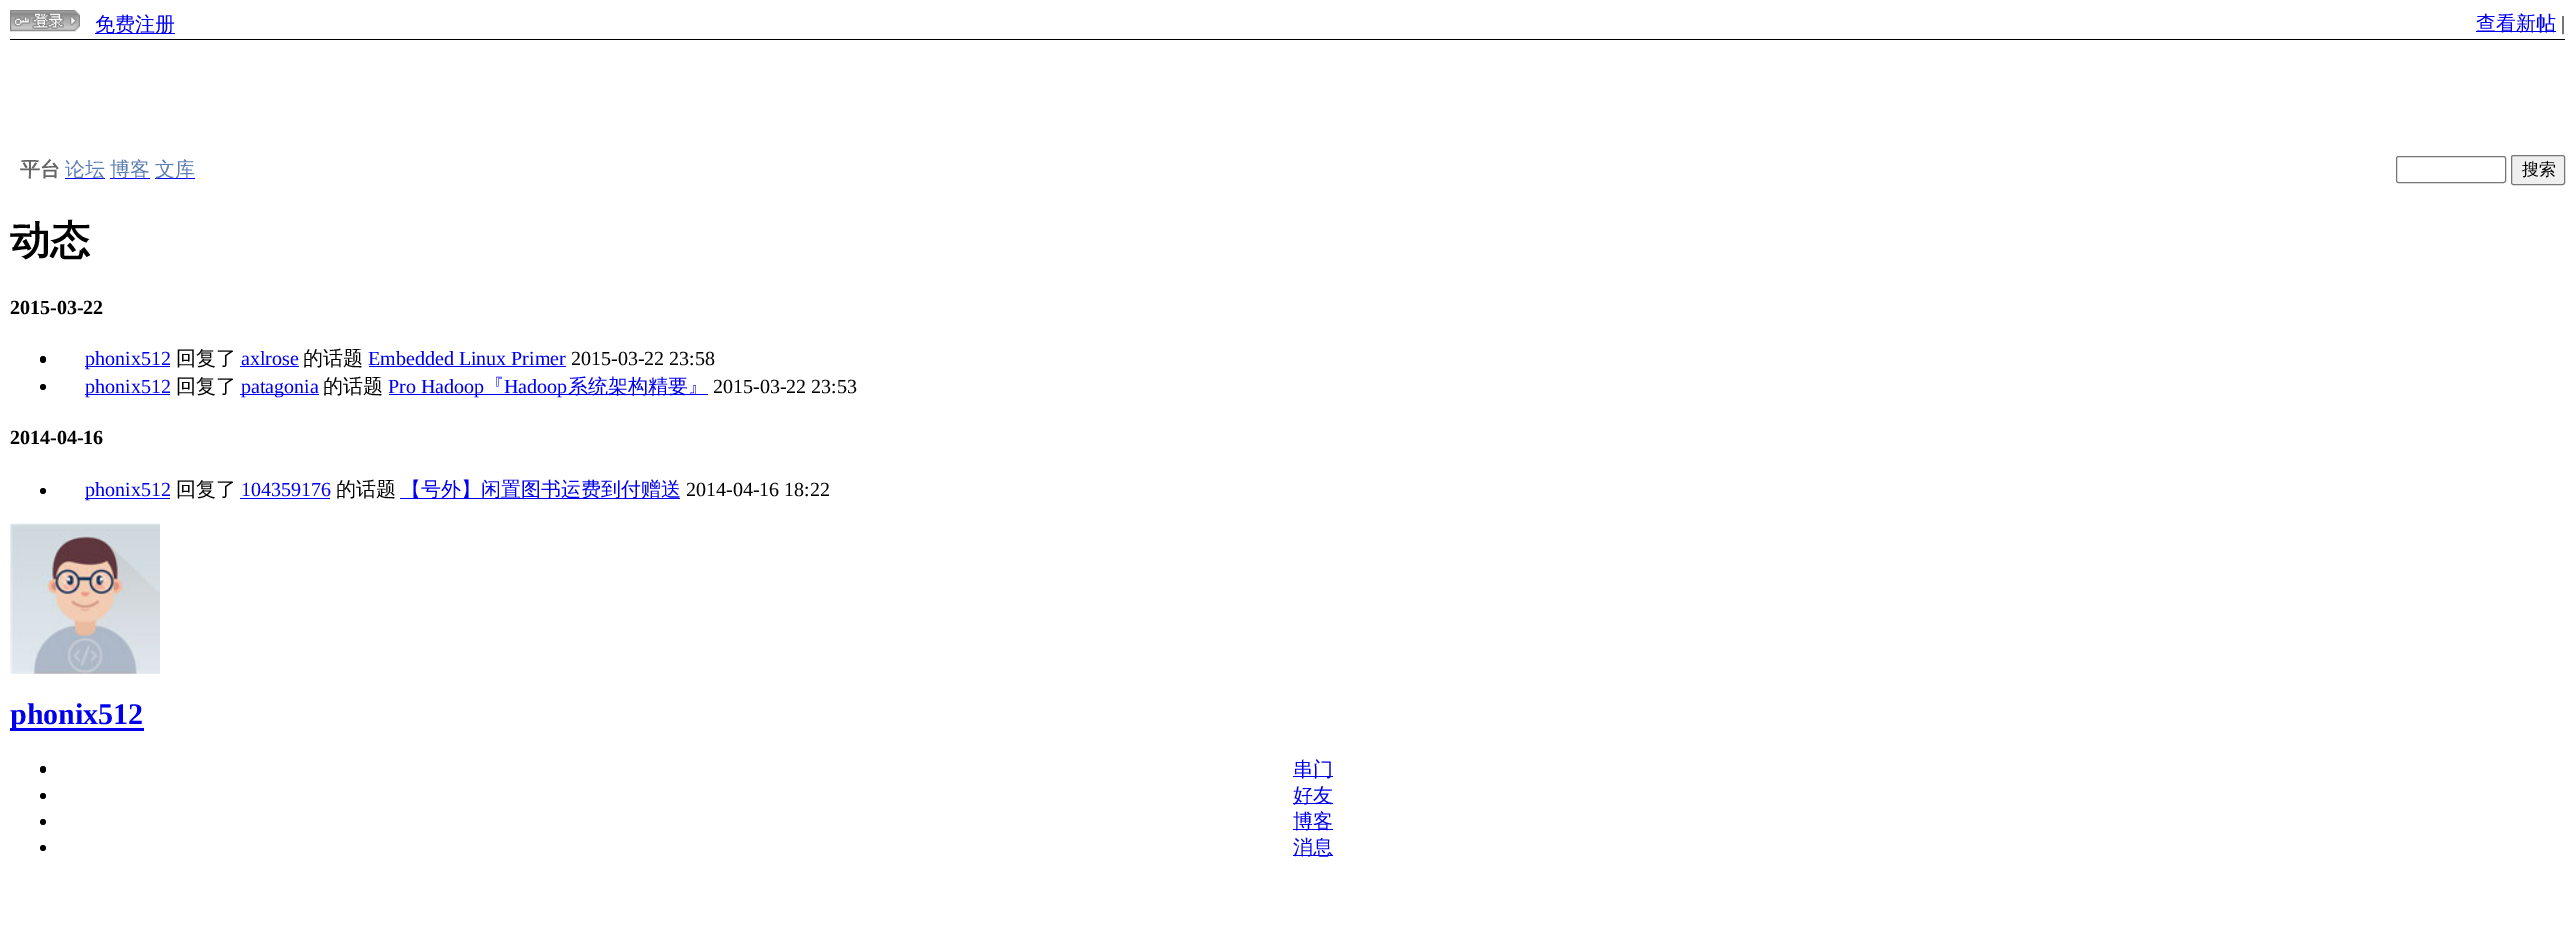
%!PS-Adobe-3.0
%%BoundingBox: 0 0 2574 944
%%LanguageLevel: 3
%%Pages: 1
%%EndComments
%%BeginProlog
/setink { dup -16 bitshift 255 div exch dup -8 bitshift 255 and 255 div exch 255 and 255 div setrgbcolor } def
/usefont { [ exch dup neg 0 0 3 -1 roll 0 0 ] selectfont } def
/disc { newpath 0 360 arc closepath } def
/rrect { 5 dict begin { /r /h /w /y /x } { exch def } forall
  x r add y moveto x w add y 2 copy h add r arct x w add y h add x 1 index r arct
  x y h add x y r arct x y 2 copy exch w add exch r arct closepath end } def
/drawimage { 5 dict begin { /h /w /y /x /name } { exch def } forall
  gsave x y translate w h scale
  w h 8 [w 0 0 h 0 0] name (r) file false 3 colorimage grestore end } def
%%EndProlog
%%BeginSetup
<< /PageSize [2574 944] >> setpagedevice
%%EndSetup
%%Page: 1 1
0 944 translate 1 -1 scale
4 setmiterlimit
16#FFFFFF setink
0 0 2574 944 rectfill
(img1.raw) 10 10 70 22 drawimage
16#0000EE setink
95 33 80 1 rectfill
/WenQuanYiZenHei-Medium 20 usefont
95 31 moveto (免费注册) show
2476 31 80 1 rectfill
2476 30 moveto (查看新帖) show
/LiberationSerif-Regular 20 usefont
16#000000 setink
2561 30 moveto (|) show
10 39 2555 1 rectfill
/WenQuanYiZenHei-Bold 20 usefont
16#666666 setink
20 176 moveto (平台) show
16#0000EE setink
65 178 40 1 rectfill
/WenQuanYiZenHei-Medium 20 usefont
16#5B7DB3 setink
65 176 moveto (论坛) show
16#0000EE setink
110 178 40 1 rectfill
16#5B7DB3 setink
110 176 moveto (博客) show
16#0000EE setink
155 178 40 1 rectfill
16#5B7DB3 setink
155 176 moveto (文库) show
16#767676 setink
2396.5 156.5 109 26 2 rrect stroke
16#EFEFEF setink
2511.5 155.5 53 29 2 rrect gsave fill grestore
16#767676 setink
stroke
/WenQuanYiZenHei-Medium 17 usefont
16#000000 setink
2522 175 moveto (搜索) show
/WenQuanYiZenHei-Bold 40 usefont
10 254 moveto (动态) show
/LiberationSerif-Bold 20 usefont
10 314 moveto (2015-03-22) show
40 356 6 7 3 rrect fill
16#0000EE setink
85 366 85 1 rectfill
/LiberationSerif-Regular 20 usefont
85 365 moveto (phonix512) show
/WenQuanYiZenHei-Medium 20 usefont
16#000000 setink
176 365 moveto (回复了) show
/LiberationSerif-Regular 20 usefont
16#0000EE setink
241 365 moveto (axlrose) show
240 366 59 1 rectfill
/WenQuanYiZenHei-Medium 20 usefont
16#000000 setink
303 365 moveto (的话题) show
/LiberationSerif-Regular 20 usefont
16#0000EE setink
368 365 moveto (Embedded Linux Primer) show
369 366 197 1 rectfill
16#000000 setink
571 365 moveto (2015-03-22 23:58) show
43 387 3 disc fill
16#0000EE setink
85 394 85 1 rectfill
85 393 moveto (phonix512) show
/WenQuanYiZenHei-Medium 20 usefont
16#000000 setink
176 393 moveto (回复了) show
16#0000EE setink
240 394 79 1 rectfill
/LiberationSerif-Regular 20 usefont
241 393 moveto (patagonia) show
/WenQuanYiZenHei-Medium 20 usefont
16#000000 setink
323 393 moveto (的话题) show
16#0000EE setink
389 394 319 1 rectfill
/LiberationSerif-Regular 20 usefont
388 393 moveto (Pro Hadoop) show
/WenQuanYiZenHei-Medium 20 usefont
484 393 moveto (『) show
/LiberationSerif-Regular 20 usefont
504 393 moveto (Hadoop) show
/WenQuanYiZenHei-Medium 20 usefont
568 393 moveto (系统架构精要』) show
/LiberationSerif-Regular 20 usefont
16#000000 setink
713 393 moveto (2015-03-22 23:53) show
/LiberationSerif-Bold 20 usefont
10 444 moveto (2014-04-16) show
43 491 3 disc fill
16#0000EE setink
85 498 85 1 rectfill
/LiberationSerif-Regular 20 usefont
85 496 moveto (phonix512) show
/WenQuanYiZenHei-Medium 20 usefont
16#000000 setink
176 496 moveto (回复了) show
/LiberationSerif-Regular 20 usefont
16#0000EE setink
241 496 moveto (104359176) show
240 498 90 1 rectfill
/WenQuanYiZenHei-Medium 20 usefont
16#000000 setink
336 496 moveto (的话题) show
16#0000EE setink
400 498 280 1 rectfill
401 496 moveto (【号外】闲置图书运费到付赠送) show
/LiberationSerif-Regular 20 usefont
16#000000 setink
686 496 moveto (2014-04-16 18:22) show
(img2.raw) 10 523 150 151 drawimage
16#0000EE setink
10 728 134 3 rectfill
/LiberationSerif-Bold 30 usefont
10 724 moveto (phonix512) show
16#000000 setink
40 766 6 7 3 rrect fill
16#0000EE setink
1293 776 40 1 rectfill
/WenQuanYiZenHei-Medium 20 usefont
1293 776 moveto (串门) show
16#000000 setink
43 796 3 disc fill
16#0000EE setink
1293 803 40 1 rectfill
1293 802 moveto (好友) show
16#000000 setink
43 822 3 disc fill
16#0000EE setink
1293 829 40 1 rectfill
1293 828 moveto (博客) show
16#000000 setink
43 848 3 disc fill
16#0000EE setink
1293 855 40 1 rectfill
1293 854 moveto (消息) show
showpage
%%EOF
